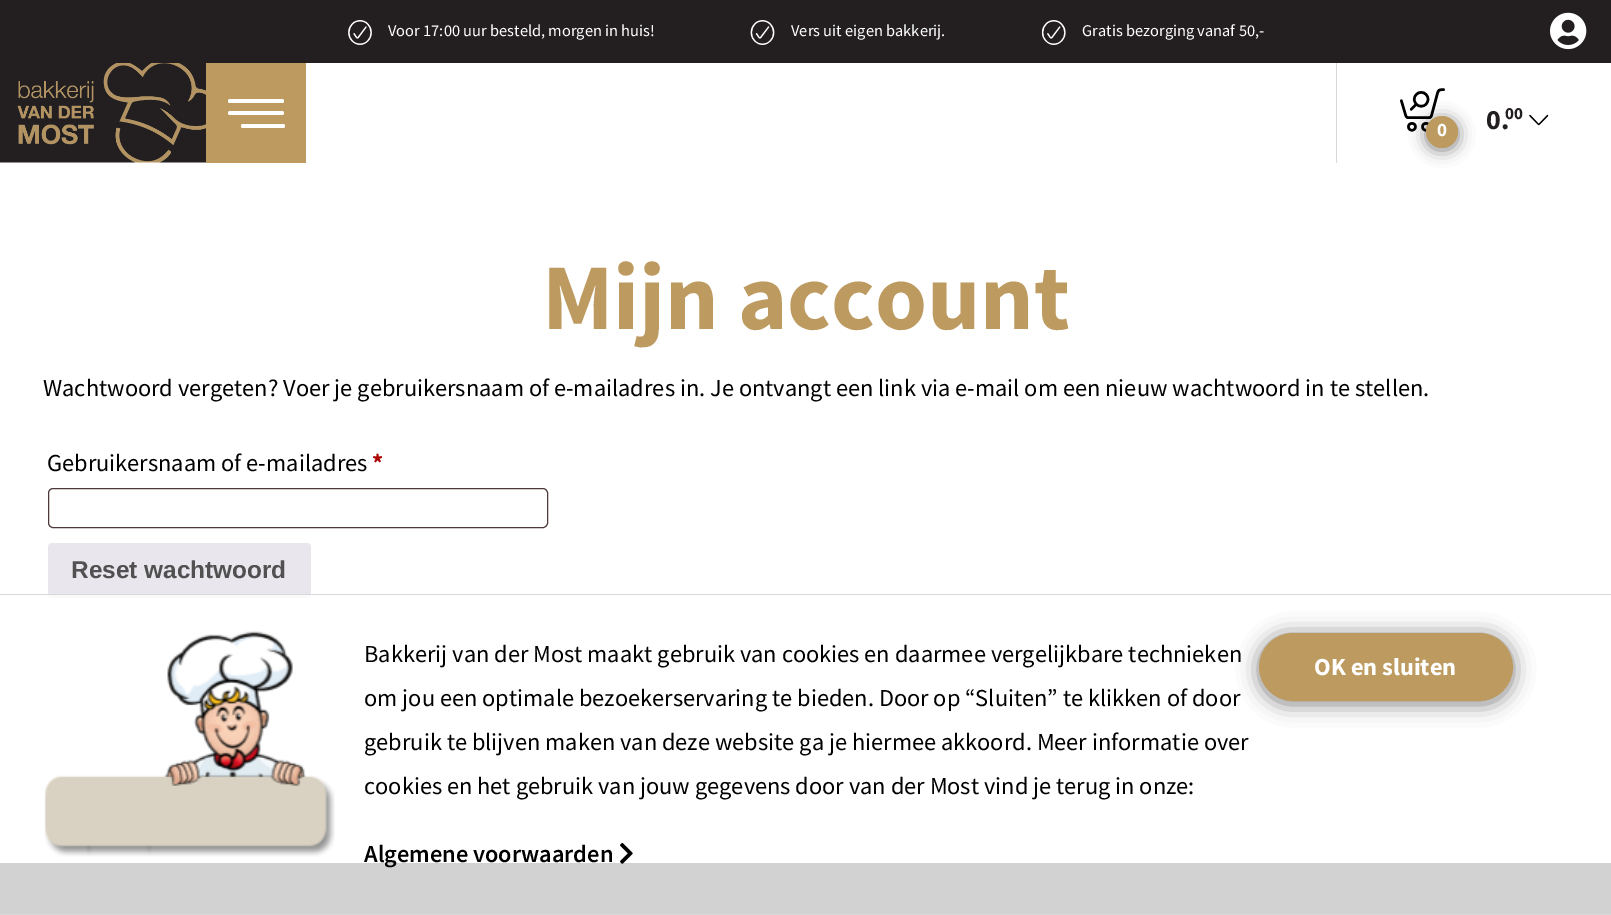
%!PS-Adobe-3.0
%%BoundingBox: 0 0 1611 915
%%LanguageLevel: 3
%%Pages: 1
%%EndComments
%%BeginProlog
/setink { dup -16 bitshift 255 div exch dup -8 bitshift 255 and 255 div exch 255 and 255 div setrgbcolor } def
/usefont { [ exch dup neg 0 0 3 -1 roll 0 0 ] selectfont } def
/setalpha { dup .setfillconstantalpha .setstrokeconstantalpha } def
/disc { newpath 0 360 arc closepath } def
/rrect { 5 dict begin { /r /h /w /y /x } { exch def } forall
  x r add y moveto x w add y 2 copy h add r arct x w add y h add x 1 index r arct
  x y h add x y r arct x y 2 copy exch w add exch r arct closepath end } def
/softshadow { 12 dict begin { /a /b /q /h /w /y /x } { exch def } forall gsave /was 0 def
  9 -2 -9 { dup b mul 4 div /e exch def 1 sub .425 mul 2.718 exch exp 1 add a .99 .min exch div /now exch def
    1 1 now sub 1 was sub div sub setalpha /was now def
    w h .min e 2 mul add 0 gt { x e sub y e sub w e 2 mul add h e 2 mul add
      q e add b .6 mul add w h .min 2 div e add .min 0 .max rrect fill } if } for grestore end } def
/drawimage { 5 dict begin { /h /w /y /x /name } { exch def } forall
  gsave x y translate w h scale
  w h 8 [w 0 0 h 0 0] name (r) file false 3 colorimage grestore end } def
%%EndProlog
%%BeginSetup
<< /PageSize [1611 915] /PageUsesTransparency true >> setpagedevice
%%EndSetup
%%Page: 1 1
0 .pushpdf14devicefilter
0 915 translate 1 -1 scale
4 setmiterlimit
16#FFFFFF setink
0 0 1611 915 rectfill
16#231F20 setink
0 0 1611 63 rectfill
(img1.raw) 348 20 24 25 drawimage
/SourceSansPro-Regular 16.4 usefont
16#FFFFFF setink
388 36 moveto (Voor 17:00 uur besteld, morgen in huis!) show
(img2.raw) 750 20 25 25 drawimage
791 36 moveto (Vers uit eigen bakkerij.) show
(img3.raw) 1041 20 25 25 drawimage
1082 36 moveto (Gratis bezorging vanaf 50,-) show
(img4.raw) 1550 12 37 38 drawimage
(img5.raw) 0 63 206 100 drawimage
16#BD9B60 setink
206 63 100 100 rectfill
16#FFFFFF setink
228 99 56 4 2 rrect fill
228 111 56 4 2 rrect fill
241 124 44 4 2 rrect fill
16#D8D8D8 setink
1336 63 1 100 rectfill
(img6.raw) 1400 88 45 44 drawimage
16#000000 setink
1426 119 32 31 15.5 8 0.5 softshadow
16#BD9B60 setink
1442 132 16 disc fill
/SourceSansPro-Bold 19 usefont
16#FFFFFF setink
1437 136 moveto (0) show
/SourceSansPro-Bold 28 usefont
16#231F20 setink
1486 129 moveto (0.) show
/SourceSansPro-Bold 17 usefont
1505 119 moveto (00) show
(img7.raw) 1529 114 20 12 drawimage
/SourceSansPro-Bold 93.75 usefont
16#BD9B60 setink
542 329 moveto (Mijn account) show
/SourceSansPro-Regular 24.38 usefont
16#000000 setink
43 396 moveto (Wachtwoord vergeten? Voer je gebruikersnaam of e-mailadres in. Je ontvangt een link via e-mail om een nieuw wachtwoord in te stellen.) show
47 471 moveto (Gebruikersnaam of e-mailadres) show
/SourceSansPro-Bold 24.38 usefont
16#AA0000 setink
372 471 moveto (*) show
16#4D3939 setink
48.5 488.5 499 39 4.5 rrect stroke
16#E9E6ED setink
48 543 263 55 4 rrect fill
/LiberationSans-Bold 24.38 usefont
16#515151 setink
71 578 moveto (Reset wachtwoord) show
[
    [0 863 1611 51 16#231F20]
] { aload pop setink rectfill } forall
0.8 setalpha
[
    [0 595 1611 319 16#FFFFFF]
] { aload pop setink rectfill } forall
1 setalpha
[
    [0 594 1611 1 16#D8D8D8]
    [0 914 1611 1 16#D8D8D8]
] { aload pop setink rectfill } forall
(img8.raw) 44 631 291 226 drawimage
/SourceSansPro-Regular 24.38 usefont
16#000000 setink
[
    [(Bakkerij van der Most maakt gebruik van cookies en daarmee vergelijkbare technieken) 364 662]
    [(om jou een optimale bezoekerservaring te bieden. Door op “Sluiten” te klikken of door) 364 706]
    [(gebruik te blijven maken van deze website ga je hiermee akkoord. Meer informatie over) 364 750]
    [(cookies en het gebruik van jouw gegevens door van der Most vind je terug in onze:) 364 794]
] { aload pop moveto show } forall
/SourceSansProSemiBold-SemiBold 24.38 usefont
364 862 moveto (Algemene voorwaarden) show
(img9.raw) 620 843 13 21 drawimage
1259 635 254 69 34.5 10.5 0.5 softshadow
16#BD9B60 setink
1260.5 634.5 251 65 32.5 rrect gsave fill grestore
3 setlinewidth
stroke
/SourceSansPro-Bold 24.38 usefont
16#FFFFFF setink
1314 675 moveto (OK en sluiten) show
.poppdf14devicefilter showpage
%%EOF
